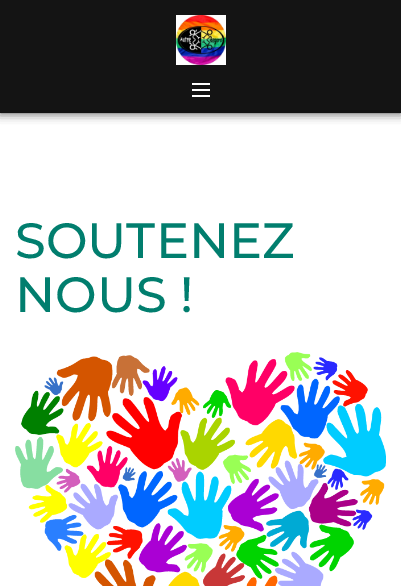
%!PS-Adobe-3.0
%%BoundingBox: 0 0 401 586
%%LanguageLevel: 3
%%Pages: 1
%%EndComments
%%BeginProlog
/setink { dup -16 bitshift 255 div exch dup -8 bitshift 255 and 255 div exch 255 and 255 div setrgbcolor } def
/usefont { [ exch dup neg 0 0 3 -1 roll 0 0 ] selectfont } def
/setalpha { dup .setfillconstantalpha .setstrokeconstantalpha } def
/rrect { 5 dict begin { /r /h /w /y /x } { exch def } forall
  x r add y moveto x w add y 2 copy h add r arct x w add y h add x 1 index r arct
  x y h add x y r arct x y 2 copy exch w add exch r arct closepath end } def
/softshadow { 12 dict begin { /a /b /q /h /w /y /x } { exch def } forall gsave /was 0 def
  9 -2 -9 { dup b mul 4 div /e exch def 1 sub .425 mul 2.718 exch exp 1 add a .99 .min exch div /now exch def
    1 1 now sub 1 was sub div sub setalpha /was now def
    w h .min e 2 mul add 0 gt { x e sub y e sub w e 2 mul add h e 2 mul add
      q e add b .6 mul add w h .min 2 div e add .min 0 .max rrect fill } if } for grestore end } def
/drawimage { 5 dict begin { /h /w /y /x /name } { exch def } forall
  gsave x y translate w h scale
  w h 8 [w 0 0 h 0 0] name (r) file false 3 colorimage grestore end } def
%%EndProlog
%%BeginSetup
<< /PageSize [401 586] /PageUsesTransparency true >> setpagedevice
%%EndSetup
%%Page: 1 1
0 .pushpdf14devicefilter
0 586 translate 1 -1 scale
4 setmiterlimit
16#FFFFFF setink
0 0 401 586 rectfill
16#000000 setink
0 0 401 113 0 5 0.75 softshadow
16#141414 setink
0 0 401 113 rectfill
(img1.raw) 176 15 50 50 drawimage
[
    [192 89 18 2 16#FFFFFF]
    [192 83 18 2 16#FFFFFF]
    [192 95 18 2 16#FFFFFF]
] { aload pop setink rectfill } forall
/Montserrat-Medium 49.5 usefont
16#017E6E setink
15 258 moveto (SOUTENEZ) show
15 312 moveto (NOUS !) show
(img2.raw) 15 352 371 234 drawimage
.poppdf14devicefilter showpage
%%EOF
